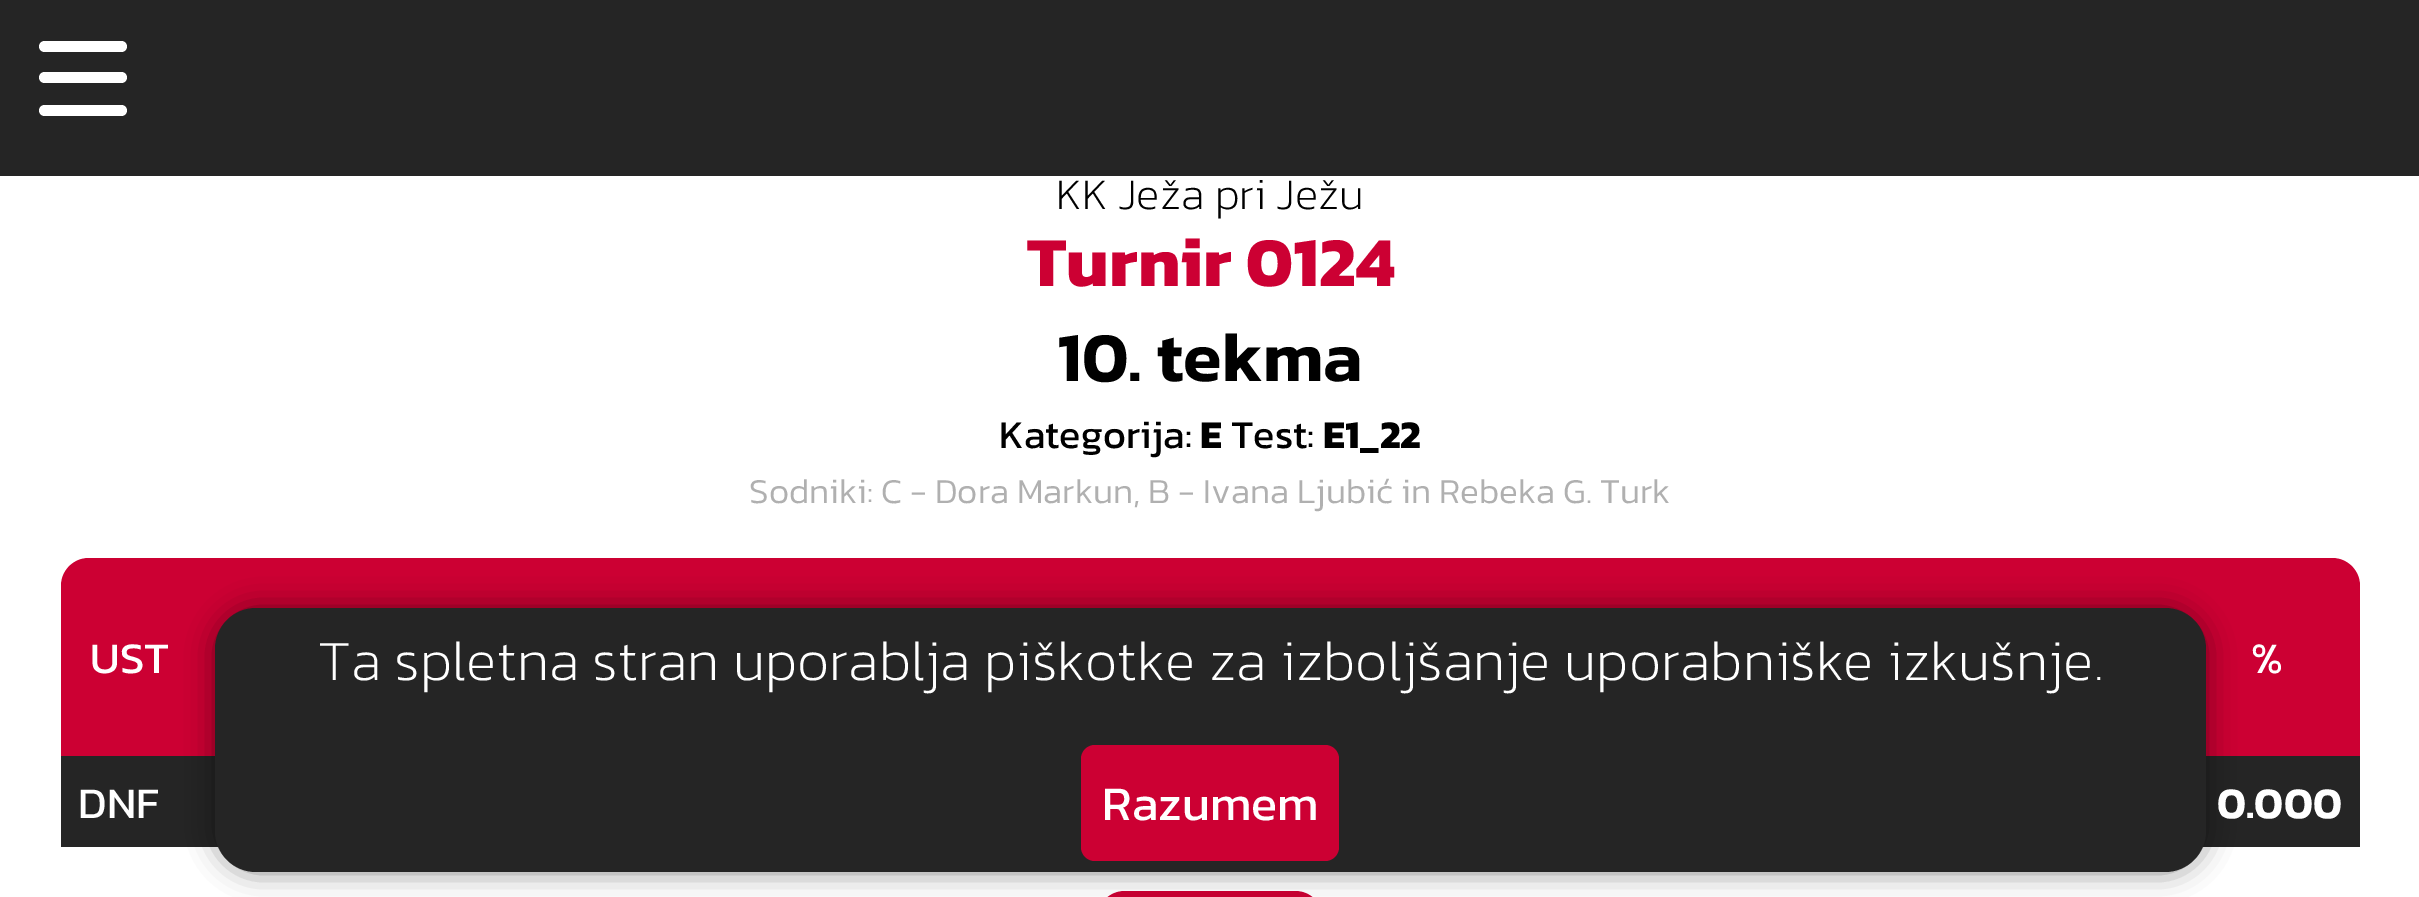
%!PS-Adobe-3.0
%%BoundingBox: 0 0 2419 897
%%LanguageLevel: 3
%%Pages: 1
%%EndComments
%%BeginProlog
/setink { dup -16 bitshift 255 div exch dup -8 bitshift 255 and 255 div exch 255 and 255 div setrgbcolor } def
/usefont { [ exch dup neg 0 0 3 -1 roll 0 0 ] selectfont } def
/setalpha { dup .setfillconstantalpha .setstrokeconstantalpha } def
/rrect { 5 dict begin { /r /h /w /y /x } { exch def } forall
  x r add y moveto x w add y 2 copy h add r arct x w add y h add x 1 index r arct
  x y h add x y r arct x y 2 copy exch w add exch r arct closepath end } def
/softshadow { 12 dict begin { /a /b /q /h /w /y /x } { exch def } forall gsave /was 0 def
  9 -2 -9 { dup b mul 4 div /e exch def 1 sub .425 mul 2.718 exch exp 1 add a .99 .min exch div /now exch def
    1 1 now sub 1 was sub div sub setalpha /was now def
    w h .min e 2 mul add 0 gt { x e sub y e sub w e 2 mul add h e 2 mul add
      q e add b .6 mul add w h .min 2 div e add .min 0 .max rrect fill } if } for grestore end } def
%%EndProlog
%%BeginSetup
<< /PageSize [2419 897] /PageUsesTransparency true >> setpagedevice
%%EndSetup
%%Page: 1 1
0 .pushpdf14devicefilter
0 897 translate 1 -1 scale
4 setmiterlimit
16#FFFFFF setink
0 0 2419 897 rectfill
16#252525 setink
0 0 2419 176 rectfill
16#FFFFFF setink
39 41 88 11 5.5 rrect fill
39 72 88 11 5.5 rrect fill
39 105 88 11 5.5 rrect fill
/Kanit-ExtraLight 44 usefont
16#000000 setink
1056 209 moveto (KK Ježa pri Ježu) show
/Kanit-Bold 70.5 usefont
16#CC0033 setink
1027 286 moveto (Turnir 0124) show
/Kanit-SemiBold 70.5 usefont
16#000000 setink
1057 381 moveto (10. tekma) show
/Kanit-Regular 39.5 usefont
999 448 moveto (Kategorija:) show
/Kanit-Bold 39.5 usefont
1200 448 moveto (E) show
/Kanit-Regular 39.5 usefont
1231 448 moveto (Test:) show
/Kanit-Bold 39.5 usefont
1323 448 moveto (E1_22) show
/Kanit-Light 35.2 usefont
16#B0B0B0 setink
749 503 moveto (Sodniki: C - Dora Markun, B - Ivana Ljubić in Rebeka G. Turk) show
16#CC0033 setink
89 558 moveto 2332 558 lineto 2347.5 558 2360 570.5 2360 586 curveto 2360 756 lineto 61 756 lineto 61 586 lineto 61 570.5 73.5 558 89 558 curveto closepath fill
16#252525 setink
61 756 2299 91 rectfill
16#CC0033 setink
1097 891 226 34 28 rrect fill
16#000000 setink
215 608 1991 264 41 14 0.45 softshadow
16#252525 setink
215 608 1991 264 41 rrect fill
/Kanit-ExtraLight 57.2 usefont
16#FFFFFF setink
318 680 moveto (Ta spletna stran uporablja piškotke za izboljšanje uporabniške izkušnje.) show
16#CC0033 setink
1081 745 258 116 14 rrect fill
/Kanit-Regular 48.5 usefont
16#FFFFFF setink
1102 820 moveto (Razumem) show
/Kanit-Regular 44 usefont
[
    [(UST) 90 673]
    [(%) 2251 673]
    [(DNF) 78 818]
] { aload pop moveto show } forall
/Kanit-SemiBold 44 usefont
2217 818 moveto (0.000) show
.poppdf14devicefilter showpage
%%EOF
